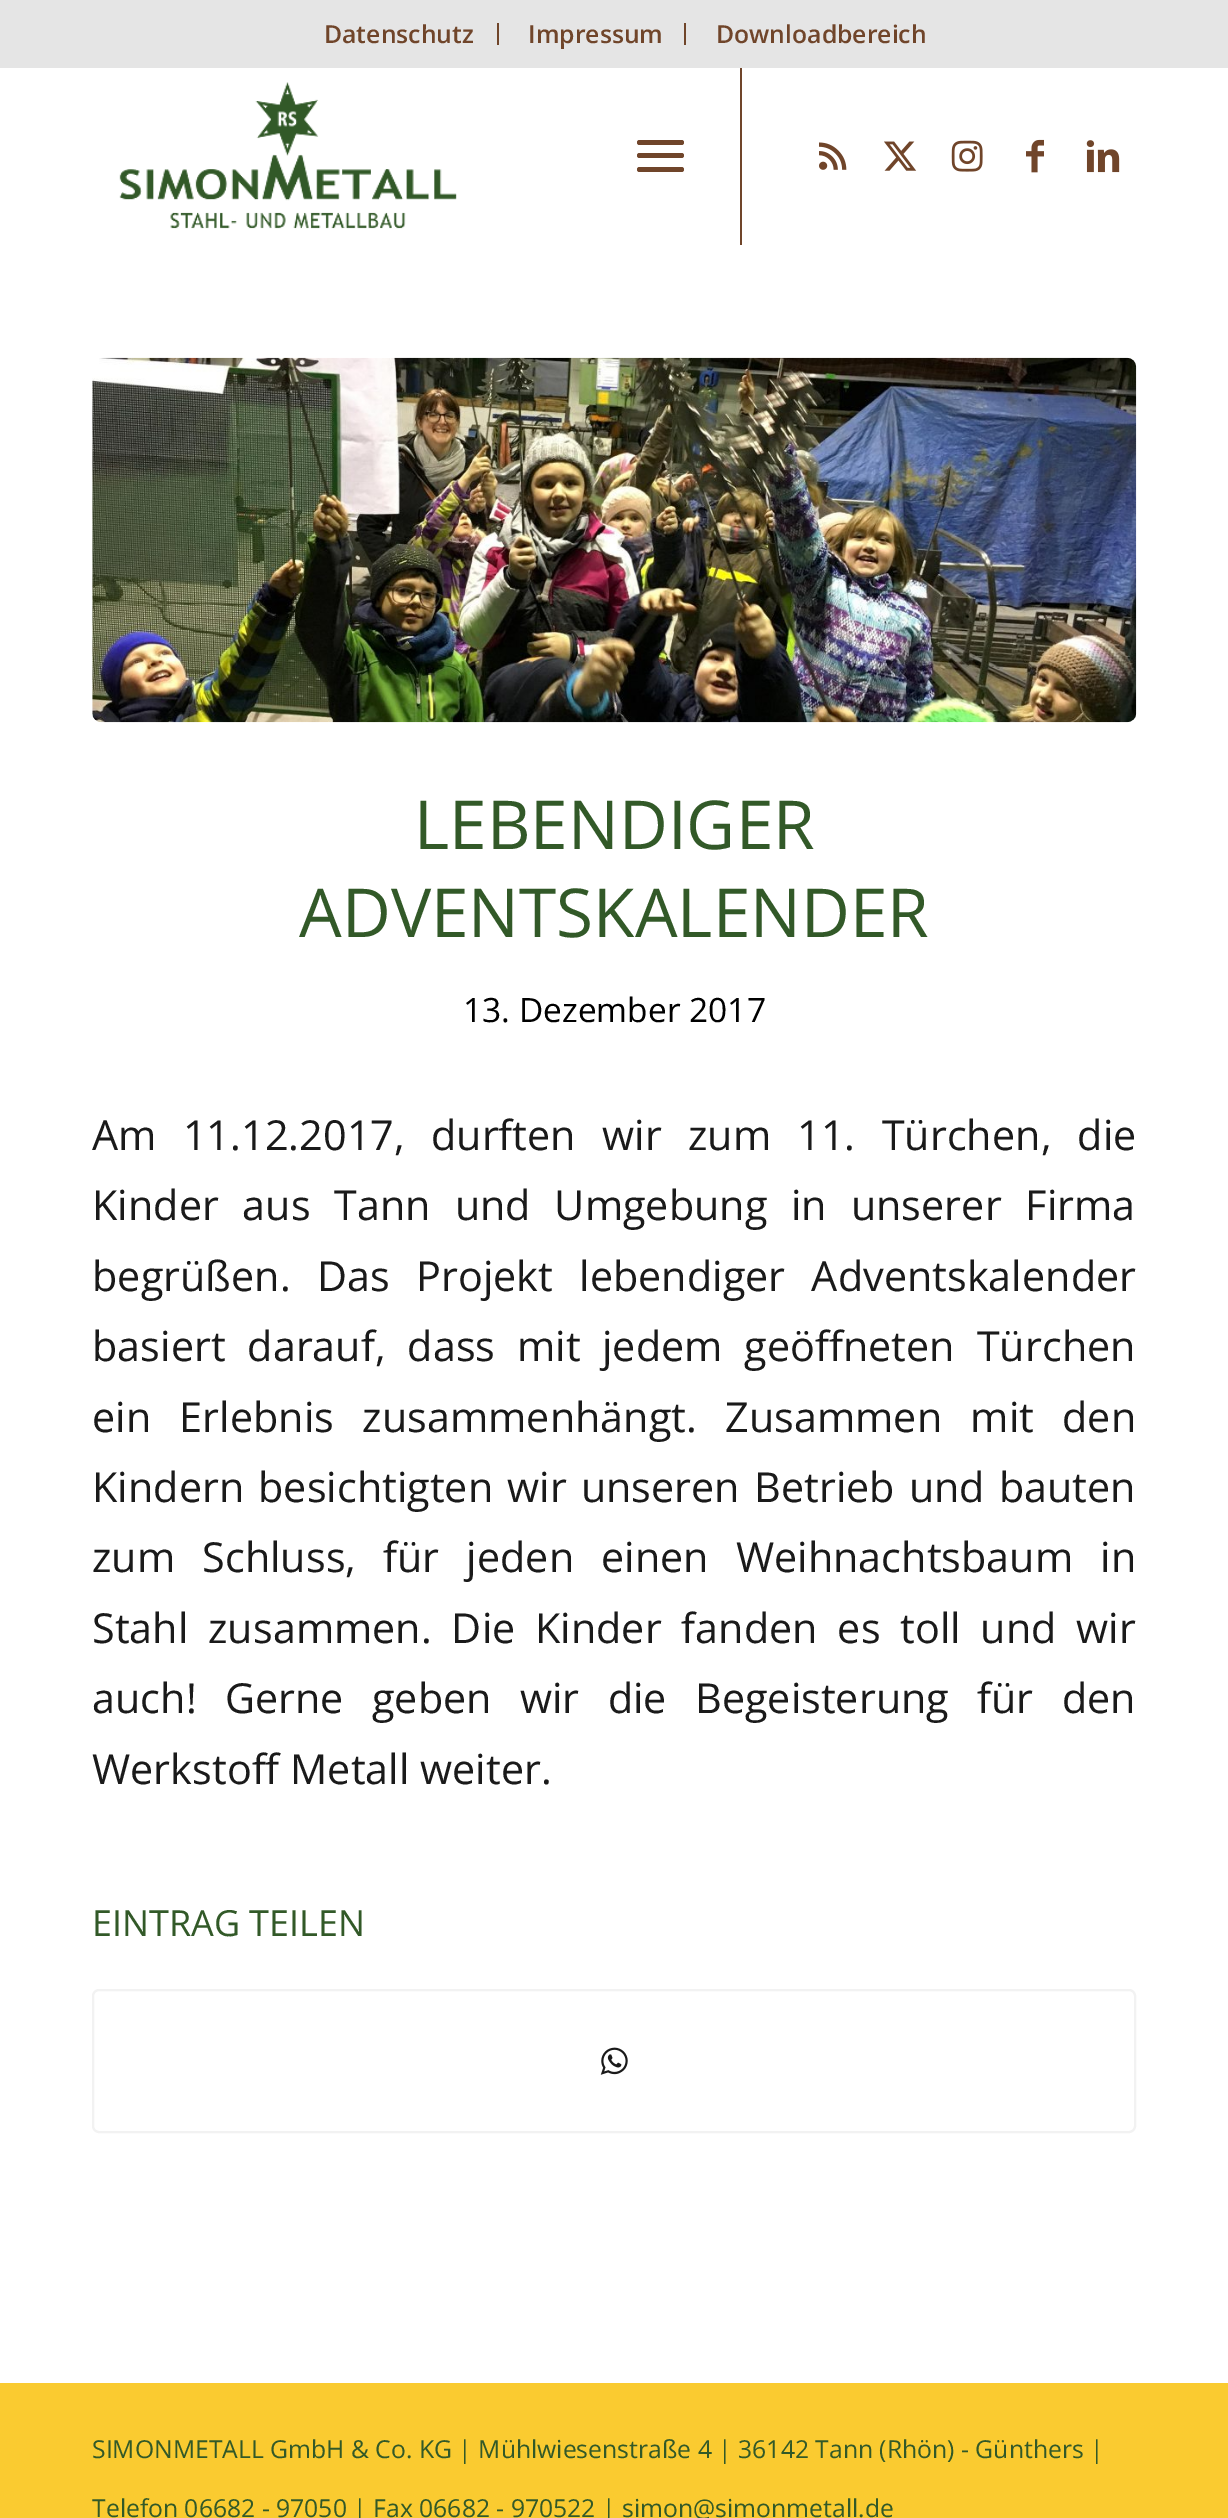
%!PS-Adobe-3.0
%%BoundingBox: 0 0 1228 2518
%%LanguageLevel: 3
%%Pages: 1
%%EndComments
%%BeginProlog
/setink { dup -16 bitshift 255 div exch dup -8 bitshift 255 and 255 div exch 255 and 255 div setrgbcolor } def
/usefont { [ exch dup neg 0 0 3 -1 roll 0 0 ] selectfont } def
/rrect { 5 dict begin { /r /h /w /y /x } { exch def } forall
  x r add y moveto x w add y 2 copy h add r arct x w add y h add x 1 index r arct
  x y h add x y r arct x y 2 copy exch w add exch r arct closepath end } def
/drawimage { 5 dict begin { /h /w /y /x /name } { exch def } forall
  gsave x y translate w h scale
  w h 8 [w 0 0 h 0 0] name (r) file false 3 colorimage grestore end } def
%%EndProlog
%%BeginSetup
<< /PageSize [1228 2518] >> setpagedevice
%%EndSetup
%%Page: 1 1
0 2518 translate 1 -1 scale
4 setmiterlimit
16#FFFFFF setink
0 0 1228 2518 rectfill
[
    [740 65 2 180 16#70452A]
    [0 0 1228 68 16#E5E5E5]
    [497 23 2 22 16#70452A]
] { aload pop setink rectfill } forall
/OpenSans-SemiBold 24.75 usefont
324 43 moveto (Datenschutz) show
684 23 2 22 rectfill
528 43 moveto (Impressum) show
716 43 moveto (Downloadbereich) show
(img1.raw) 119 82 338 147 drawimage
637 153 47 5 2.5 rrect fill
637 140 47 5 2.5 rrect fill
637 167 47 5 2.5 rrect fill
(img2.raw) 819 142 28 28 drawimage
(img3.raw) 884 141 33 30 drawimage
(img4.raw) 951 140 32 32 drawimage
(img5.raw) 1026 139 18 34 drawimage
(img6.raw) 1086 140 34 33 drawimage
(img7.raw) 92 357 1045 366 drawimage
/OpenSans-Regular 67.5 usefont
16#325928 setink
414 849 moveto (LEBENDIGER) show
299 937 moveto (ADVENTSKALENDER) show
/OpenSans-Regular 33.5 usefont
16#000000 setink
463 1022 moveto (13. Dezember 2017) show
/OpenSans-Regular 41.4 usefont
16#1A1A1A setink
92 1150 moveto 15.5 0 32 (Am 11.12.2017, durften wir zum 11. Türchen, die) widthshow
92 1220 moveto 13 0 32 (Kinder aus Tann und Umgebung in unserer Firma) widthshow
92 1291 moveto 15.5 0 32 (begrüßen. Das Projekt lebendiger Adventskalender) widthshow
92 1361 moveto 11 0 32 (basiert darauf, dass mit jedem geöffneten Türchen) widthshow
92 1432 moveto 17.5 0 32 (ein Erlebnis zusammenhängt. Zusammen mit den) widthshow
92 1502 moveto 3.25 0 32 (Kindern besichtigten wir unseren Betrieb und bauten) widthshow
92 1572 moveto 16.25 0 32 (zum Schluss, für jeden einen Weihnachtsbaum in) widthshow
92 1643 moveto 9 0 32 (Stahl zusammen. Die Kinder fanden es toll und wir) widthshow
92 1713 moveto 17.5 0 32 (auch! Gerne geben wir die Begeisterung für den) widthshow
92 1784 moveto (Werkstoff Metall weiter.) show
/OpenSans-Regular 36 usefont
16#325928 setink
92 1936 moveto (EINTRAG TEILEN) show
16#F2F2F2 setink
2 setlinewidth
93 1990 1042 142 6 rrect stroke
(img8.raw) 600 2047 28 28 drawimage
16#FACB30 setink
0 2383 1228 135 rectfill
/OpenSans-Regular 24.75 usefont
16#325928 setink
92 2458 moveto (SIMONMETALL GmbH & Co. KG | Mühlwiesenstraße 4 | 36142 Tann \(Rhön\) - Günthers |) show
92 2517 moveto (Telefon 06682 - 97050 | Fax 06682 - 970522 | simon@simonmetall.de) show
showpage
%%EOF
